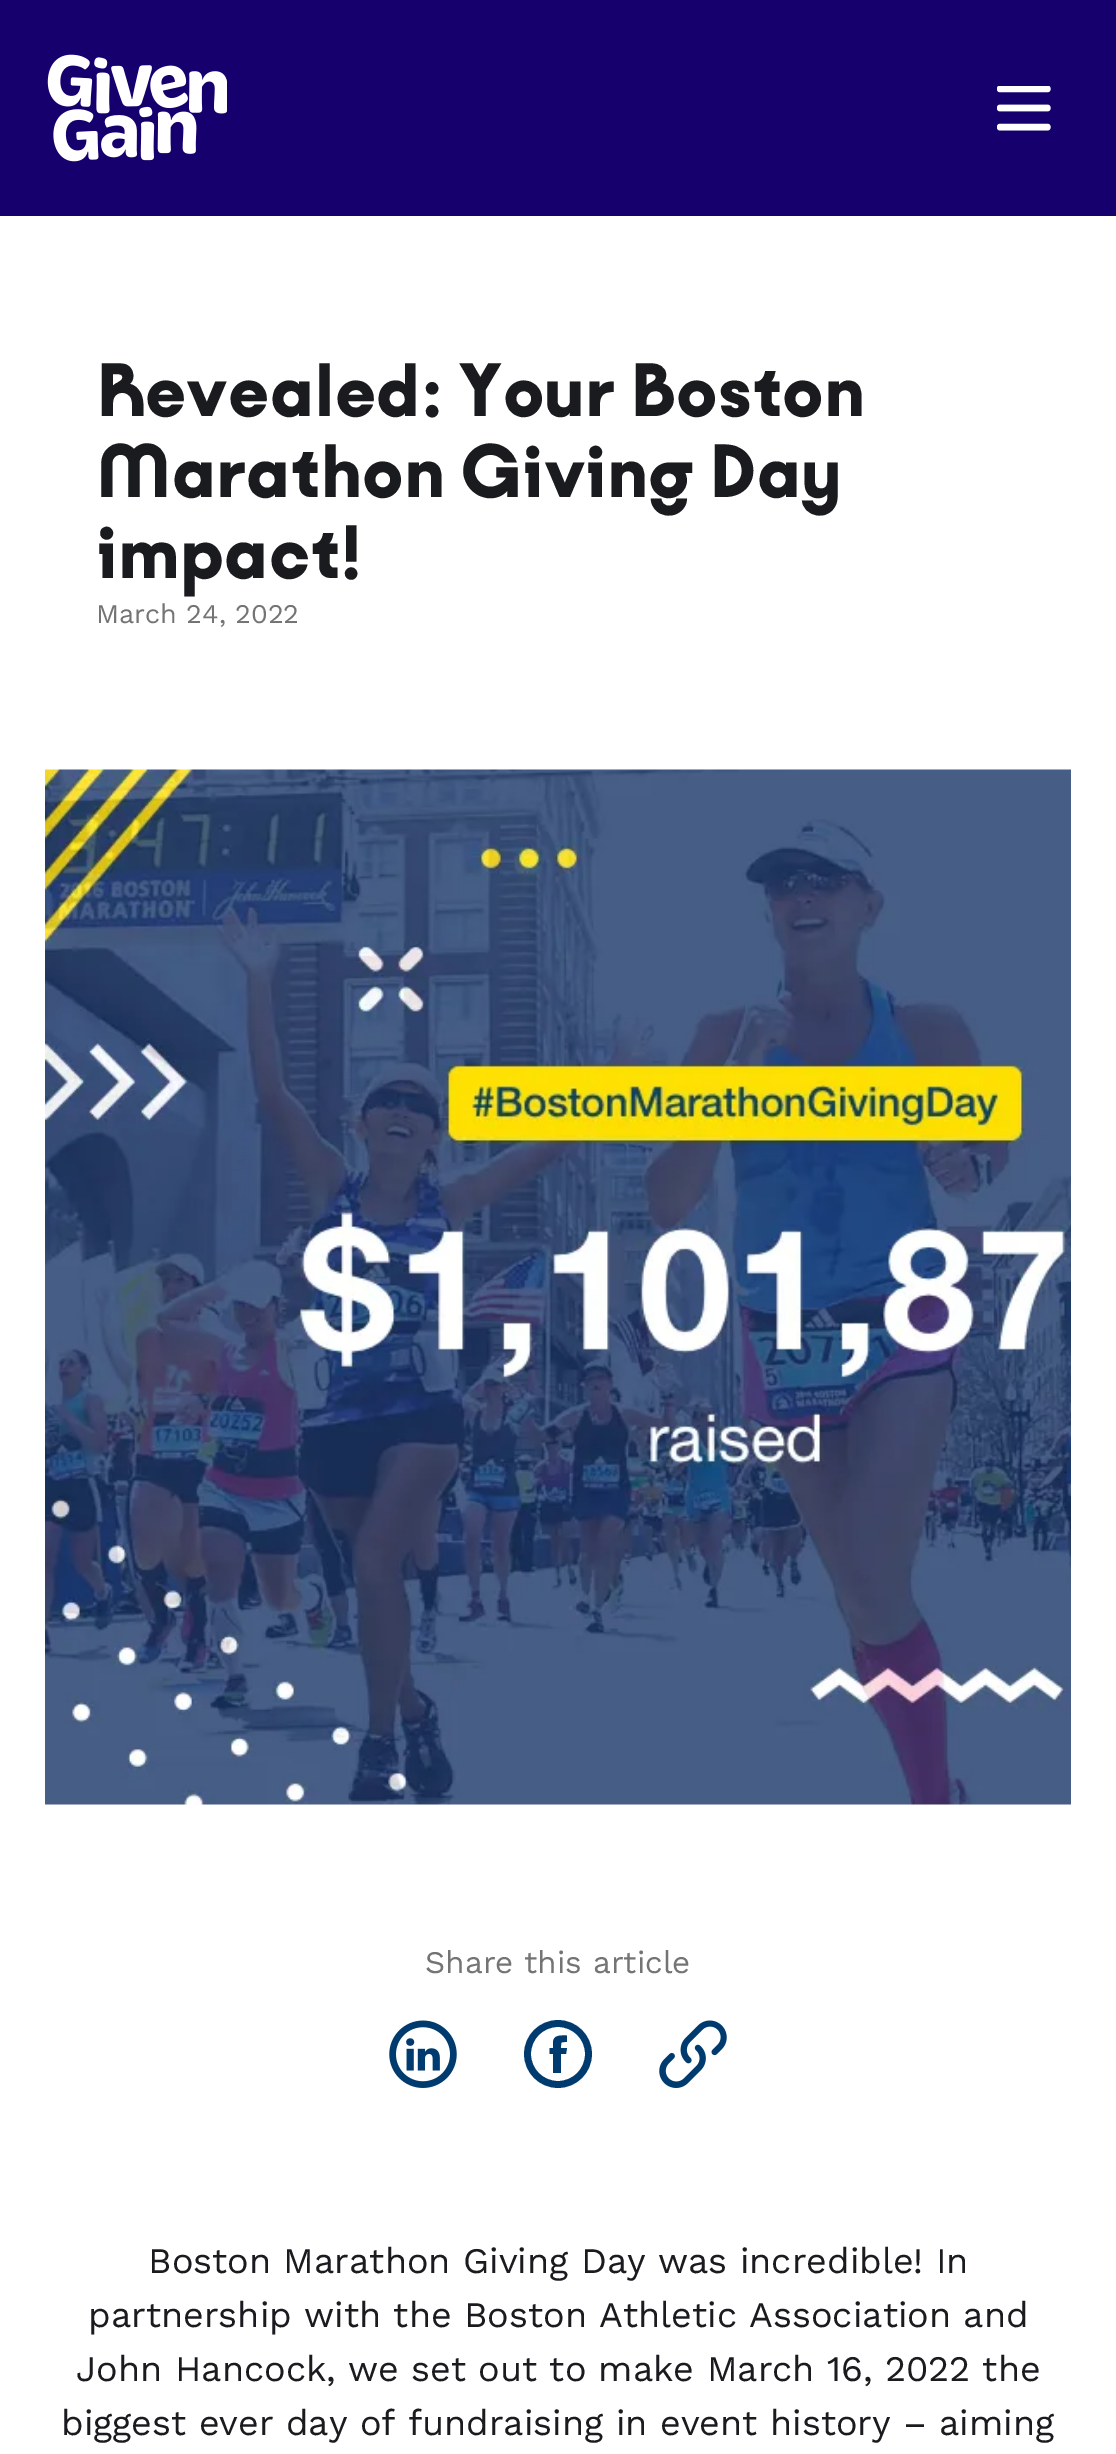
%!PS-Adobe-3.0
%%BoundingBox: 0 0 1116 2454
%%LanguageLevel: 3
%%Pages: 1
%%EndComments
%%BeginProlog
/setink { dup -16 bitshift 255 div exch dup -8 bitshift 255 and 255 div exch 255 and 255 div setrgbcolor } def
/usefont { [ exch dup neg 0 0 3 -1 roll 0 0 ] selectfont } def
/disc { newpath 0 360 arc closepath } def
/drawimage { 5 dict begin { /h /w /y /x /name } { exch def } forall
  gsave x y translate w h scale
  w h 8 [w 0 0 h 0 0] name (r) file false 3 colorimage grestore end } def
%%EndProlog
%%BeginSetup
<< /PageSize [1116 2454] >> setpagedevice
%%EndSetup
%%Page: 1 1
0 2454 translate 1 -1 scale
4 setmiterlimit
16#FFFFFF setink
0 0 1116 2454 rectfill
16#15006D setink
0 0 1116 216 rectfill
(img1.raw) 47 54 180 108 drawimage
(img2.raw) 997 86 54 45 drawimage
/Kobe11-Black 81 usefont
16#1A1B1F setink
[
    [(Revealed: Your Boston) 96 416]
    [(Marathon Giving Day) 96 497]
    [(impact!) 96 578]
] { aload pop moveto show } forall
/WorkSans-Regular 27 usefont
16#747474 setink
96 623 moveto (March 24, 2022) show
(img3.raw) 45 769 1026 1036 drawimage
/WorkSans-Regular 31.5 usefont
425 1973 moveto (Share this article) show
(img4.raw) 389 2020 68 68 drawimage
16#003B6F setink
553 2043 moveto 553 2048 lineto 549.5 2048 lineto 549.5 2054 lineto 553 2054 lineto 553 2073 lineto 561 2073 lineto 561 2054 lineto 566 2054 lineto 567 2048 lineto 561 2048 lineto 561 2041.5 560.5 2042 567 2042 curveto 567 2035.5 lineto 561 2035.5 553 2034.5 553 2043 curveto closepath fill
6.8 setlinewidth
558 2054 30.5 disc stroke
(img5.raw) 659 2020 68 68 drawimage
/WorkSans-Regular 36 usefont
16#1A1B1F setink
[
    [(Boston Marathon Giving Day was incredible! In) 148 2273]
    [(partnership with the Boston Athletic Association and) 88 2327]
    [(John Hancock, we set out to make March 16, 2022 the) 76 2381]
    [(biggest ever day of fundraising in event history – aiming) 61 2435]
] { aload pop moveto show } forall
showpage
%%EOF
